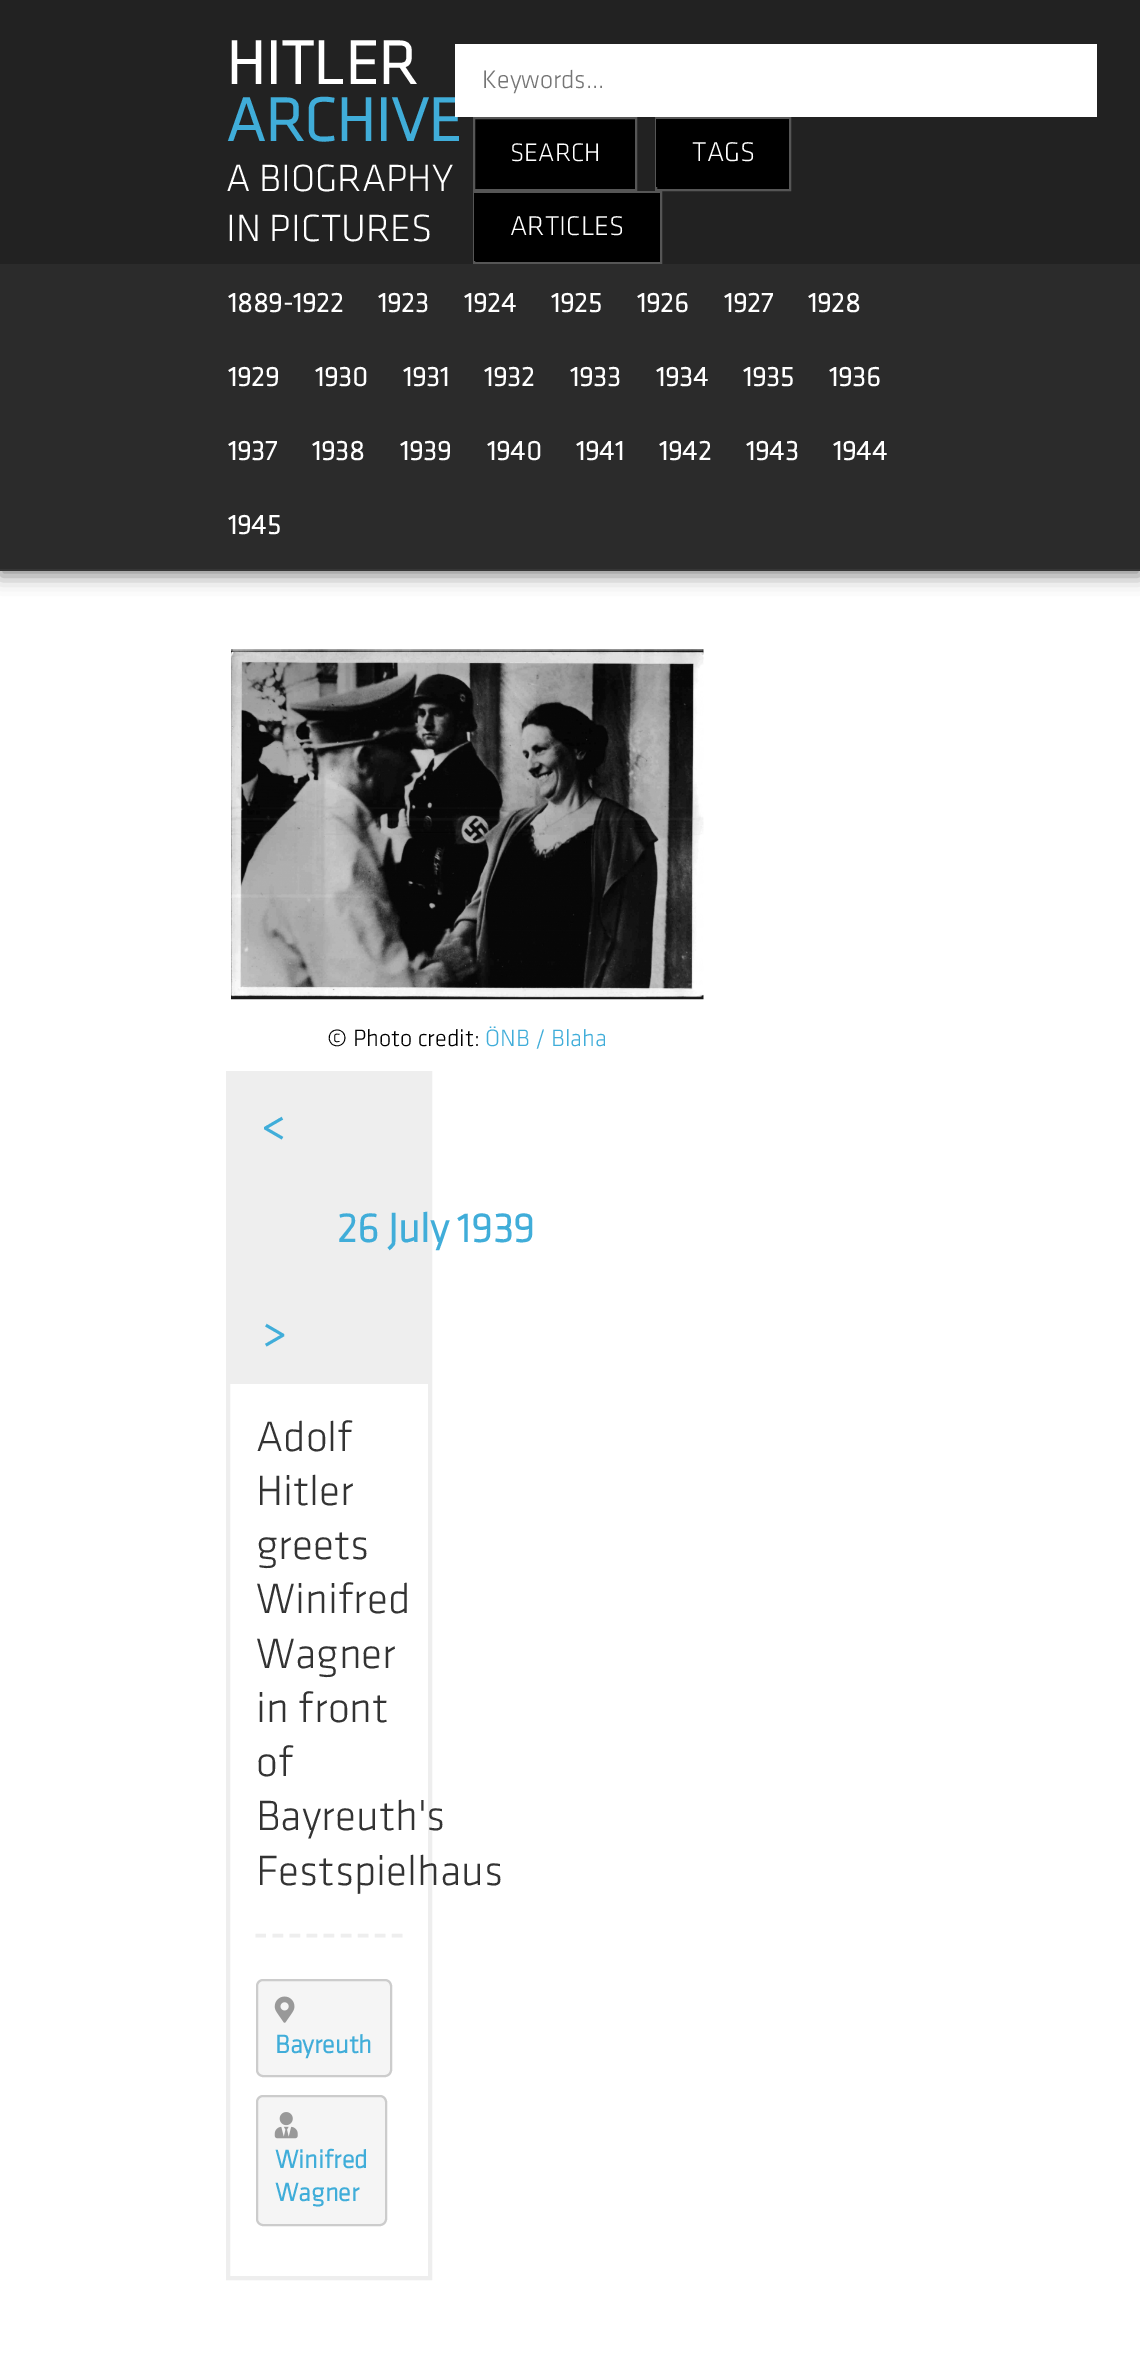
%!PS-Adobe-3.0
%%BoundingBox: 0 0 1140 2366
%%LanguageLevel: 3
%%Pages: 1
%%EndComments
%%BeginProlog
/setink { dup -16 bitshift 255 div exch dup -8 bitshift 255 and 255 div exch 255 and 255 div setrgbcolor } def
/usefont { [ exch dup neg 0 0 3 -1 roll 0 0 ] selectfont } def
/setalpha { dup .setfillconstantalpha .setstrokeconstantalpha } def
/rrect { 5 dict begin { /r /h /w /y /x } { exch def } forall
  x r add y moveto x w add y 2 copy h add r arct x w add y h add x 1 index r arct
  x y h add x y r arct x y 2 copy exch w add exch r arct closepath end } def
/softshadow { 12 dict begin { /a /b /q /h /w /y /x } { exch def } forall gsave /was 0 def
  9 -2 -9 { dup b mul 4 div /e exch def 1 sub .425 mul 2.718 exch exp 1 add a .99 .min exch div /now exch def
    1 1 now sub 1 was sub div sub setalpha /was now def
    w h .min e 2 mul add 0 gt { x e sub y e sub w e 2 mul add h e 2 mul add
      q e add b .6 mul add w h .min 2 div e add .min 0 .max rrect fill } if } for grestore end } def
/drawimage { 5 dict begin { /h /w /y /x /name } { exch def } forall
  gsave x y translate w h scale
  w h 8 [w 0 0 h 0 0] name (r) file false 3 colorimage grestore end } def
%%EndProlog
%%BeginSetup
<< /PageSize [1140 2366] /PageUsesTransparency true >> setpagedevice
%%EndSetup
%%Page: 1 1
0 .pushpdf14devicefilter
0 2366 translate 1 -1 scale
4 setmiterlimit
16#FFFFFF setink
0 0 1140 2366 rectfill
16#888888 setink
0 5 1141 571 0 9 1 softshadow
16#222222 setink
0 0 1140 264 rectfill
/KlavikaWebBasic-Bold 63 usefont
16#FFFFFF setink
226 84 moveto (HITLER) show
16#40ADD9 setink
226 141 moveto (ARCHIVE) show
/KlavikaWebBasic-Light 39.25 usefont
16#FFFFFF setink
226 191 moveto (A BIOGRAPHY) show
226 241 moveto (IN PICTURES) show
455 44 642 73 rectfill
/KlavikaWebBasic-Light 26.25 usefont
16#757575 setink
482 88 moveto (Keywords...) show
16#000000 setink
474 118 moveto 636 118 lineto 636 190 lineto 474 190 lineto closepath gsave fill grestore
16#565656 setink
2 setlinewidth
stroke
16#FFFFFF setink
510 161 moveto (SEARCH) show
16#000000 setink
657 187 132 2 rectfill
16#565656 setink
656 118 134 72 rectstroke
16#000000 setink
656 119 133 68 rectfill
/KlavikaWebBasic-Light 28 usefont
16#FFFFFF setink
692 161 moveto (TAGS) show
16#000000 setink
475 261 185 1 rectfill
16#565656 setink
474 192 187 71 rectstroke
16#000000 setink
474 193 186 68 rectfill
16#FFFFFF setink
510 235 moveto (ARTICLES) show
16#2B2B2B setink
0 264 1140 305 rectfill
16#363636 setink
0 569 1140 2 rectfill
/KlavikaWebBasic-Bold 28 usefont
16#FFFFFF setink
[
    [(1889-1922) 228 312]
    [(1923) 378 312]
    [(1924) 464 312]
    [(1925) 551 312]
    [(1926) 637 312]
    [(1927) 724 312]
    [(1928) 808 312]
    [(1929) 228 386]
    [(1930) 315 386]
    [(1931) 403 386]
    [(1932) 484 386]
    [(1933) 570 386]
    [(1934) 656 386]
    [(1935) 743 386]
    [(1936) 829 386]
    [(1937) 228 460]
    [(1938) 312 460]
    [(1939) 400 460]
    [(1940) 487 460]
    [(1941) 576 460]
    [(1942) 659 460]
    [(1943) 746 460]
    [(1944) 833 460]
    [(1945) 228 534]
] { aload pop moveto show } forall
(img1.raw) 231 649 473 351 drawimage
/KlavikaWebBasic-Light 24.5 usefont
16#000000 setink
327 1046 moveto (© Photo credit:) show
16#40ADD9 setink
485 1046 moveto (ÖNB / Blaha) show
16#EEEEEE setink
4 setlinewidth
228 1073 202 1205 rectstroke
230 1075 198 309 rectfill
/KlavikaWebBasic-Bold 42 usefont
16#40ADD9 setink
[
    [(<) 262 1139]
    [(26 July 1939) 337 1242]
    [(>) 262 1346]
] { aload pop moveto show } forall
/KlavikaWebBasic-Light 43.75 usefont
16#333333 setink
[
    [(Adolf) 256 1451]
    [(Hitler) 256 1505]
    [(greets) 256 1559]
    [(Winifred) 256 1613]
    [(Wagner) 256 1668]
    [(in front) 256 1722]
    [(of) 256 1776]
    [(Bayreuth's) 256 1830]
    [(Festspielhaus) 256 1885]
] { aload pop moveto show } forall
16#EEEEEE setink
3.5 setlinewidth
[10.5 6.56] 0 setdash
255.5 1935.5 moveto 402.5 1935.5 lineto stroke
16#F5F5F5 setink
257 1980 134 96 6 rrect gsave fill grestore
16#CCCCCC setink
2 setlinewidth
[] 0 setdash
stroke
(img2.raw) 274 1996 21 27 drawimage
/KlavikaWebBasic-Bold 26.25 usefont
16#40ADD9 setink
275 2053 moveto (Bayreuth) show
16#F5F5F5 setink
257 2096 129 129 6 rrect gsave fill grestore
16#CCCCCC setink
stroke
(img3.raw) 274 2112 24 27 drawimage
16#40ADD9 setink
275 2168 moveto (Winifred) show
275 2201 moveto (Wagner) show
.poppdf14devicefilter showpage
%%EOF
